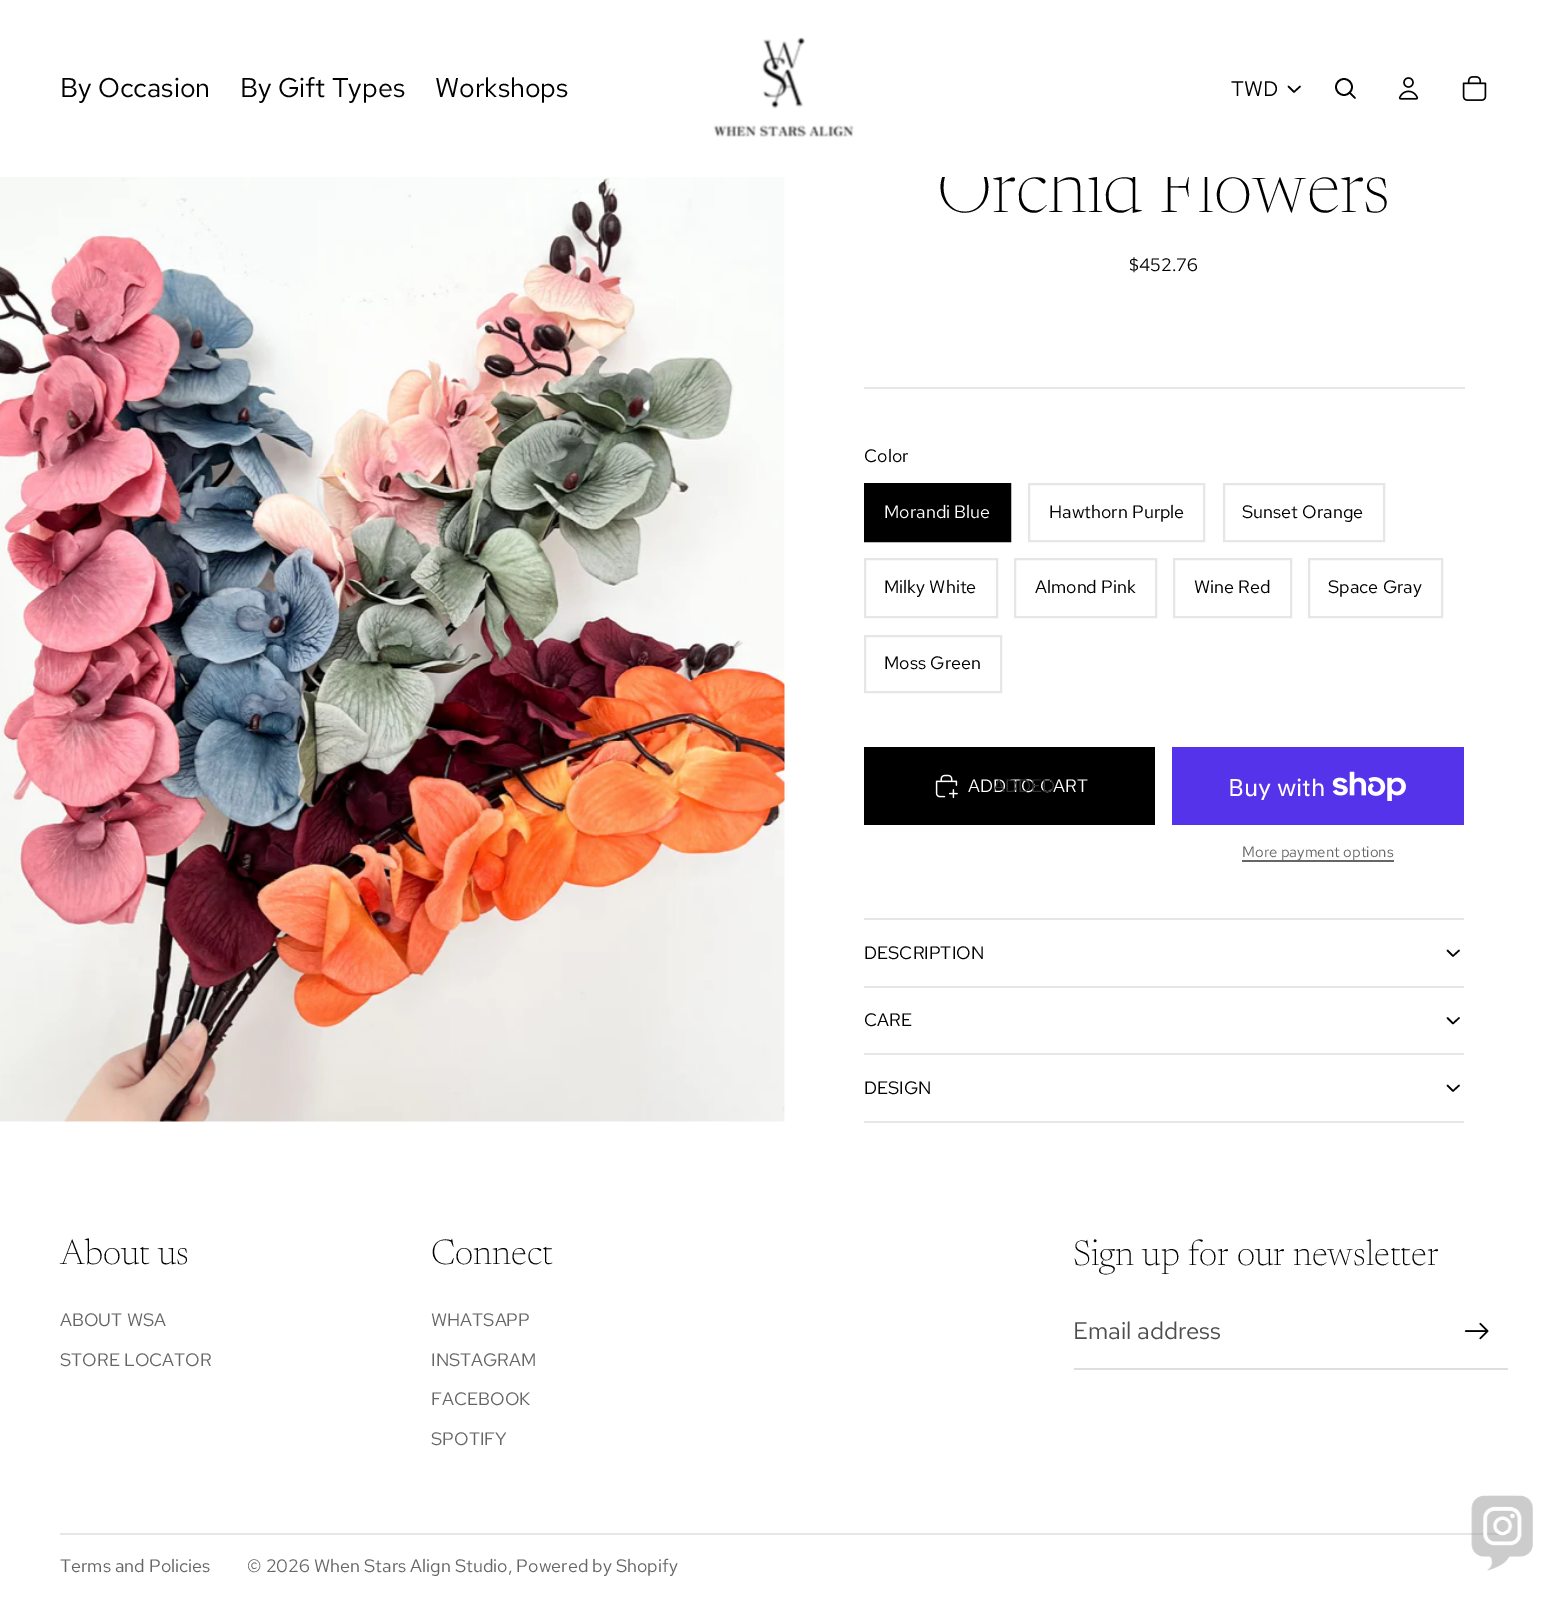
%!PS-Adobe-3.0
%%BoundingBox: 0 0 1567 1604
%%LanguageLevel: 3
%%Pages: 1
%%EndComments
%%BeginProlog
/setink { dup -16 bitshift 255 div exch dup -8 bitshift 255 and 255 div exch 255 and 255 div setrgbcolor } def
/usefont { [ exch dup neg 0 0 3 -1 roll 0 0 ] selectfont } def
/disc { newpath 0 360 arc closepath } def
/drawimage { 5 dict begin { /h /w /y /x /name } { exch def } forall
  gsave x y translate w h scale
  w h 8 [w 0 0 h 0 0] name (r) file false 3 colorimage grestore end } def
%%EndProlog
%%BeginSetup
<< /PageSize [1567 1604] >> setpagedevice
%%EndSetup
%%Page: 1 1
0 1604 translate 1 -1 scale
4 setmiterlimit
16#FFFFFF setink
0 0 1567 1604 rectfill
/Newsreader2-ExtraLight 72 usefont
16#000000 setink
937 212 moveto (Orchid Flowers) show
16#FFFFFF setink
942 159 408 18 rectfill
/RedHatText-Regular 27 usefont
16#000000 setink
[
    [(By Occasion) 60 97]
    [(By Gift Types) 240 97]
    [(Workshops) 435 97]
] { aload pop moveto show } forall
(img1.raw) 713 37 141 101 drawimage
/RedHatText-Regular 21 usefont
1231 96 moveto (TWD) show
1.5 setlinewidth
1 setlinecap
1 setlinejoin
1300 86.5 moveto 1294 92 lineto 1288.5 86.5 lineto stroke
1.7 setlinewidth
0 setlinecap
0 setlinejoin
1344 87 8 disc stroke
1 setlinecap
1 setlinejoin
1349.5 92.5 moveto 1355 98 lineto stroke
(img2.raw) 1398 77 21 23 drawimage
(img3.raw) 1462 76 25 25 drawimage
(img4.raw) 0 177 785 945 drawimage
/RedHatText-Regular 18 usefont
1129 271 moveto ($452.76) show
16#E6E6E6 setink
864 387 601 2 rectfill
16#000000 setink
864 462 moveto (Color) show
2 setlinewidth
0 setlinecap
0 setlinejoin
865 484 145 57 rectstroke
866 485 143 55 rectfill
16#FFFFFF setink
884 518 moveto (Morandi Blue) show
16#E6E6E6 setink
1029 484 175 57 rectstroke
16#000000 setink
1049 518 moveto (Hawthorn Purple) show
16#E6E6E6 setink
1224 484 160 57 rectstroke
16#000000 setink
1242 518 moveto (Sunset Orange) show
16#E6E6E6 setink
865 559 132 58 rectstroke
16#000000 setink
884 593 moveto (Milky White) show
16#E6E6E6 setink
1015 559 141 58 rectstroke
16#000000 setink
1035 593 moveto (Almond Pink) show
16#E6E6E6 setink
1174 559 117 58 rectstroke
16#000000 setink
1194 593 moveto (Wine Red) show
16#E6E6E6 setink
1309 559 133 58 rectstroke
16#000000 setink
1328 593 moveto (Space Gray) show
16#E6E6E6 setink
865 636 136 56 rectstroke
16#000000 setink
884 669 moveto (Moss Green) show
864 747 291 78 rectfill
(img5.raw) 935 774 23 25 drawimage
16#FFFFFF setink
968 792 moveto (ADD TO CART) show
16#333333 setink
993 792 moveto (ADDED) show
16#5433EB setink
1172 747 292 78 rectfill
/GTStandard-Regular 24 usefont
16#FFFFFF setink
1228 796 moveto (Buy with) show
(img6.raw) 1332 771 74 30 drawimage
16#666666 setink
1242 860 152 2 rectfill
/RedHatText-Regular 15 usefont
1242 857 moveto (More payment options) show
16#E6E6E6 setink
864 918 600 2 rectfill
/RedHatText-Regular 18 usefont
16#000000 setink
864 959 moveto (DESCRIPTION) show
1.5 setlinewidth
1 setlinecap
1 setlinejoin
1459 950.5 moveto 1453 956 lineto 1447.5 950.5 lineto stroke
16#E6E6E6 setink
864 986 600 2 rectfill
16#000000 setink
864 1026 moveto (CARE) show
1459 1018 moveto 1453 1023.5 lineto 1447.5 1018 lineto stroke
16#E6E6E6 setink
864 1053 600 2 rectfill
864 1121 600 2 rectfill
16#000000 setink
864 1094 moveto (DESIGN) show
1459 1085.5 moveto 1453 1091 lineto 1447.5 1085.5 lineto stroke
/Newsreader-ExtraLight 36 usefont
60 1264 moveto (About us) show
/RedHatText-Regular 18 usefont
16#666666 setink
60 1326 moveto (ABOUT WSA) show
60 1366 moveto (STORE LOCATOR) show
/Newsreader-ExtraLight 36 usefont
16#000000 setink
431 1264 moveto (Connect) show
/RedHatText-Regular 18 usefont
16#666666 setink
[
    [(WHATSAPP) 431 1326]
    [(INSTAGRAM) 431 1366]
    [(FACEBOOK) 431 1405]
    [(SPOTIFY) 431 1445]
] { aload pop moveto show } forall
/Newsreader-ExtraLight 36 usefont
16#000000 setink
1073 1265 moveto (Sign up for our newsletter) show
16#DEDEDE setink
1074 1368 moveto 1074 1370 lineto 1508 1370 lineto 1508 1296 lineto 1508 1368 lineto closepath fill
/RedHatText-Regular 24 usefont
16#4D4D4D setink
1073 1339 moveto (Email address) show
(img7.raw) 1464 1322 25 18 drawimage
16#E6E6E6 setink
60 1533 1448 2 rectfill
/RedHatText-Regular 18 usefont
16#666666 setink
60 1572 moveto (Terms and Policies) show
247 1572 moveto (© 2026 When Stars Align Studio, Powered by Shopify) show
(img8.raw) 1471 1495 62 76 drawimage
showpage
%%EOF
